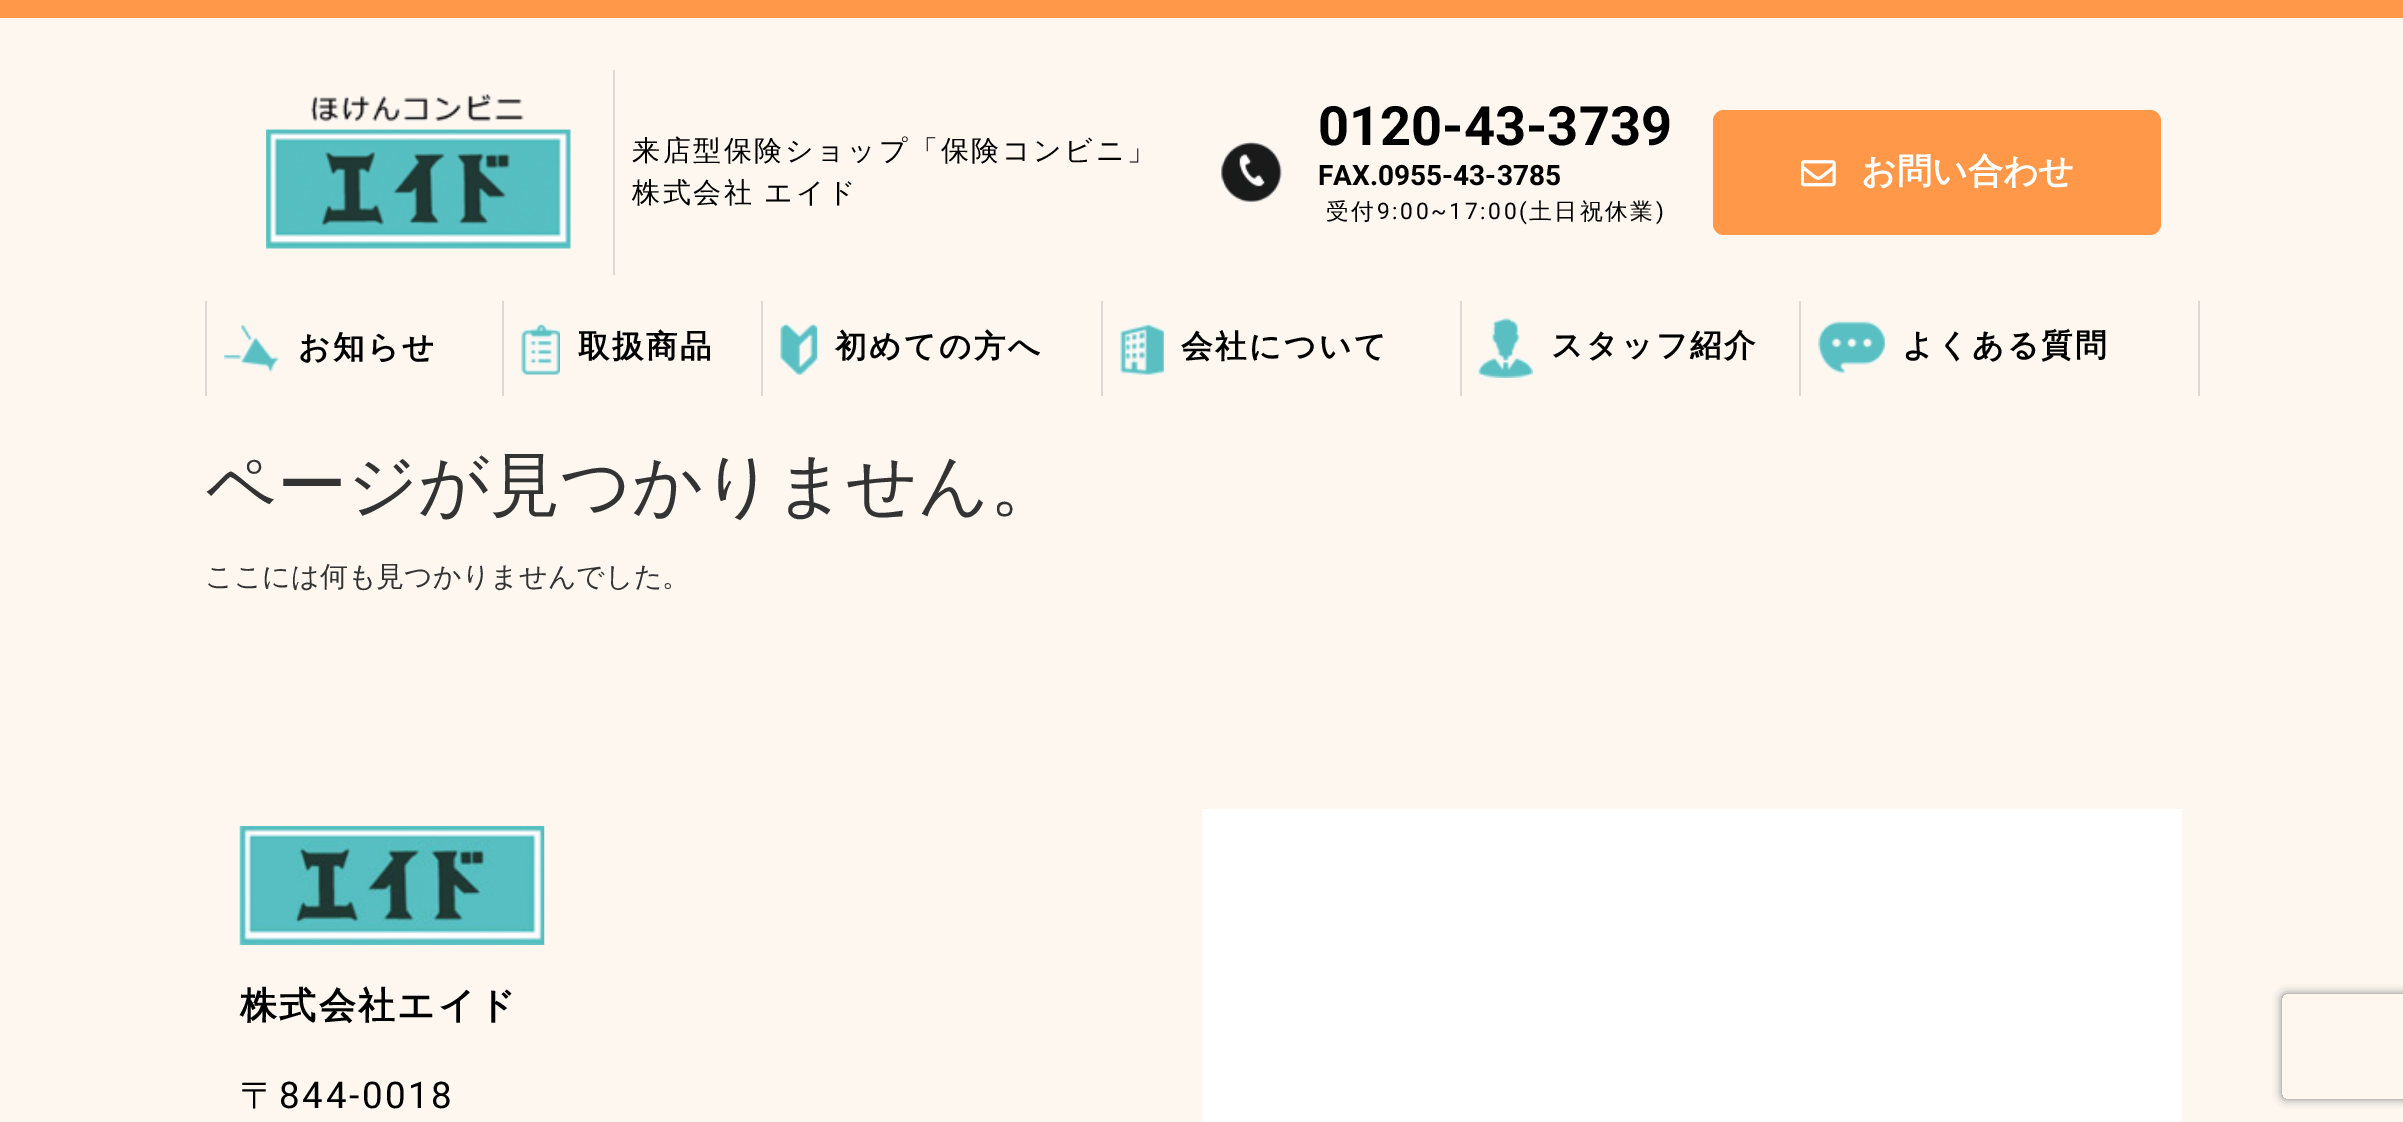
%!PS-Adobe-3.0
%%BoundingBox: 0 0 2403 1122
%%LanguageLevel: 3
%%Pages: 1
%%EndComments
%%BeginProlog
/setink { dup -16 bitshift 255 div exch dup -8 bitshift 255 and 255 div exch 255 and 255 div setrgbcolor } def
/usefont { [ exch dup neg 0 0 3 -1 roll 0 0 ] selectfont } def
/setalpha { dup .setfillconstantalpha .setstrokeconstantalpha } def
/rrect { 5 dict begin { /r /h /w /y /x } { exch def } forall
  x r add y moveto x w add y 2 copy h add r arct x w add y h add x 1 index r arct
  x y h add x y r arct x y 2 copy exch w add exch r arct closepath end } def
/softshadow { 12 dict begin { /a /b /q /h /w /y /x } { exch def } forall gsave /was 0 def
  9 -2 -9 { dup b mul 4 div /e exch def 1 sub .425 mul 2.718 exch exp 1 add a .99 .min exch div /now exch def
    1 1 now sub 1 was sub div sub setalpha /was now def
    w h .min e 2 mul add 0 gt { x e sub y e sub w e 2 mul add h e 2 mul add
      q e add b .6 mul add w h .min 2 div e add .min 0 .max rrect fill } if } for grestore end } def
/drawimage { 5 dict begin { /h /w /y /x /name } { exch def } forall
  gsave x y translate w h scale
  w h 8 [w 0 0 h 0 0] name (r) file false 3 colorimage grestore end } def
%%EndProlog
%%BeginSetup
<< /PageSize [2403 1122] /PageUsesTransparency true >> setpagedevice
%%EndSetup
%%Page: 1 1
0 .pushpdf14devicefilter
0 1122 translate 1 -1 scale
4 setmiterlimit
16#FDF7F0 setink
0 0 2403 1122 rectfill
16#FF9849 setink
0 0 2403 18 rectfill
16#DCD8D4 setink
613 70 2 205 rectfill
(img1.raw) 266 94 305 155 drawimage
/WenQuanYiZenHei-Medium 28 usefont
16#000000 setink
632 160 moveto 2.6 0 (来店型保険ショップ「保険コンビニ」) ashow
632 202 moveto -1 0 32 2.6 0 (株式会社 エイド) awidthshow
(img2.raw) 1221 141 61 62 drawimage
/Roboto-Bold 54.25 usefont
1318 145 moveto (0120-43-3739) show
/Roboto-Bold 28 usefont
1318 185 moveto (FAX.0955-43-3785) show
/WenQuanYiZenHei-Medium 22.75 usefont
1326 219 moveto 2.6 0 (受付) ashow
/Roboto-Regular 22.75 usefont
1377 219 moveto 2.6 0 (9:00~17:00\() ashow
/WenQuanYiZenHei-Medium 22.75 usefont
1529 219 moveto 2.6 0 (土日祝休業) ashow
/Roboto-Regular 22.75 usefont
1656 219 moveto 2.6 0 (\)) ashow
16#FF9849 setink
1713 110 448 125 11 rrect fill
(img3.raw) 1801 160 35 27 drawimage
/WenQuanYiZenHei-Bold 35 usefont
16#FFFFFF setink
1861 183 moveto (お問い合わせ) show
16#DCD8D4 setink
502 301 2 95 rectfill
205 301 2 95 rectfill
(img4.raw) 224 325 55 47 drawimage
/WenQuanYiZenHei-Bold 31.5 usefont
16#000000 setink
298 358 moveto 2.6 0 (お知らせ) ashow
16#DCD8D4 setink
761 301 2 95 rectfill
(img5.raw) 521 323 39 52 drawimage
16#000000 setink
578 357 moveto 2.6 0 (取扱商品) ashow
16#DCD8D4 setink
1101 301 2 95 rectfill
(img6.raw) 780 323 38 52 drawimage
16#000000 setink
835 357 moveto 2.6 0 (初めての方へ) ashow
16#DCD8D4 setink
1460 301 2 95 rectfill
(img7.raw) 1120 323 44 52 drawimage
16#000000 setink
1181 357 moveto 2.6 0 (会社について) ashow
16#DCD8D4 setink
1799 301 2 95 rectfill
(img8.raw) 1478 318 55 60 drawimage
16#000000 setink
1551 356 moveto 2.6 0 (スタッフ紹介) ashow
16#DCD8D4 setink
2198 301 2 95 rectfill
(img9.raw) 1818 321 67 53 drawimage
16#000000 setink
1902 356 moveto 2.6 0 (よくある質問) ashow
/WenQuanYiZenHei-Medium 70 usefont
16#333333 setink
205 509 moveto (ページが見つかりません。) show
/WenQuanYiZenHei-Medium 28 usefont
205 586 moveto (ここには何も見つかりませんでした。) show
(img10.raw) 239 826 306 119 drawimage
/WenQuanYiZenHei-Bold 36.75 usefont
16#000000 setink
240 1018 moveto 2.6 0 (株式会社エイド) ashow
/WenQuanYiZenHei-Medium 36.75 usefont
240 1108 moveto 2.6 0 (〒) ashow
/Roboto-Regular 36.75 usefont
279 1108 moveto 2.6 0 (844-0018) ashow
16#FFFFFF setink
1202 809 980 313 rectfill
gsave
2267 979 moveto 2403 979 lineto 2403 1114 lineto 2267 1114 lineto closepath 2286 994 moveto 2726 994 lineto 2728 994 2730 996 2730 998 curveto 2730 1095 lineto 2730 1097 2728 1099 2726 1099 curveto 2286 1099 lineto 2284 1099 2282 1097 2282 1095 curveto 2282 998 lineto 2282 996 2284 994 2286 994 curveto closepath eoclip newpath
16#808080 setink
2282 994 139 105 4 4.5 1 softshadow
grestore
.poppdf14devicefilter showpage
%%EOF
